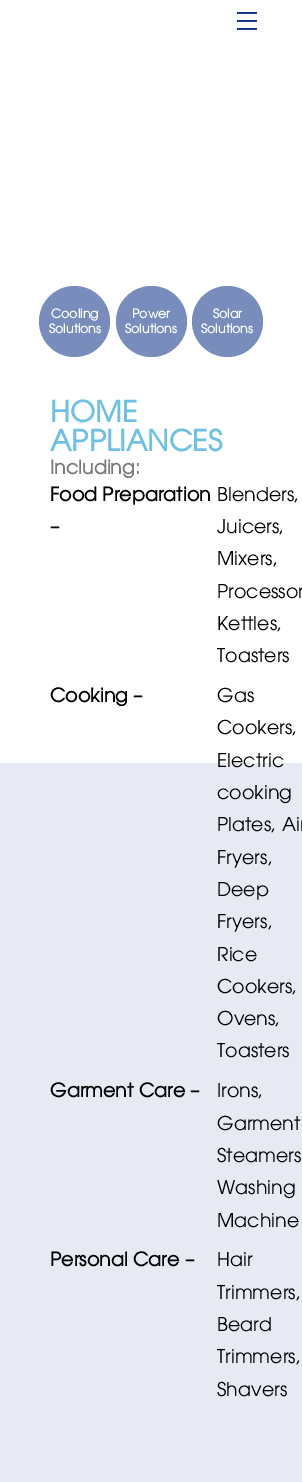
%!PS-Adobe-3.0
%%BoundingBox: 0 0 302 1482
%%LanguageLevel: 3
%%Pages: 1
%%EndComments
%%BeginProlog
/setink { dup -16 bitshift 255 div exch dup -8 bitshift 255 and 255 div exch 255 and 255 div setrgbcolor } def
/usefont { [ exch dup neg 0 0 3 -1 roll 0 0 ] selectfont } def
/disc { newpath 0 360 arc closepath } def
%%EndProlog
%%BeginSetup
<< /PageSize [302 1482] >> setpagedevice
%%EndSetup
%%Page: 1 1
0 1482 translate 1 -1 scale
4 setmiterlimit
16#FFFFFF setink
0 0 302 1482 rectfill
[
    [237 20 20 2 16#17378E]
    [237 12 20 2 16#17378E]
    [237 28 20 2 16#17378E]
] { aload pop setink rectfill } forall
16#798DBD setink
74.5 321.5 35.5 disc fill
/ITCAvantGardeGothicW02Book-Bold 12.5 usefont
16#FFFFFF setink
51 318 moveto (Cooling) show
49 333 moveto (Solutions) show
16#798DBD setink
151.5 321.5 35.5 disc fill
16#FFFFFF setink
132 318 moveto (Power) show
125 333 moveto (Solutions) show
16#798DBD setink
227.5 321.5 35.5 disc fill
16#FFFFFF setink
213 318 moveto (Solar) show
201 333 moveto (Solutions) show
/ITCAvantGardeGothicW02Book-Bold 29 usefont
16#6EC1E4 setink
50 422 moveto (HOME) show
50 451 moveto (APPLIANCES) show
/ITCAvantGardeGothicW02Book-Bold 19 usefont
16#7A7A7A setink
50 474 moveto (Including:) show
16#000000 setink
50 501 moveto (Food Preparation) show
50 533 moveto (–) show
/ITCAvantGardeGothicW02Book-Regular 19 usefont
[
    [(Blenders,) 217 501]
    [(Juicers,) 217 533]
    [(Mixers,) 217 565]
    [(Processor) 217 598]
    [(Kettles,) 217 630]
    [(Toasters) 217 662]
] { aload pop moveto show } forall
/ITCAvantGardeGothicW02Book-Bold 19 usefont
50 702 moveto (Cooking –) show
/ITCAvantGardeGothicW02Book-Regular 19 usefont
217 702 moveto (Gas) show
217 734 moveto (Cookers,) show
16#E7EAF3 setink
0 763 302 719 rectfill
16#000000 setink
[
    [(Electric) 217 767]
    [(cooking) 217 799]
    [(Plates, Air) 217 831]
    [(Fryers,) 217 864]
    [(Deep) 217 896]
    [(Fryers,) 217 928]
    [(Rice) 217 961]
    [(Cookers,) 217 993]
    [(Ovens,) 217 1025]
    [(Toasters) 217 1057]
] { aload pop moveto show } forall
/ITCAvantGardeGothicW02Book-Bold 19 usefont
50 1097 moveto (Garment Care –) show
/ITCAvantGardeGothicW02Book-Regular 19 usefont
[
    [(Irons,) 217 1097]
    [(Garment) 217 1130]
    [(Steamers) 217 1162]
    [(Washing) 217 1194]
    [(Machine) 217 1227]
] { aload pop moveto show } forall
/ITCAvantGardeGothicW02Book-Bold 19 usefont
50 1266 moveto (Personal Care –) show
/ITCAvantGardeGothicW02Book-Regular 19 usefont
[
    [(Hair) 217 1266]
    [(Trimmers,) 217 1299]
    [(Beard) 217 1331]
    [(Trimmers,) 217 1363]
    [(Shavers) 217 1396]
] { aload pop moveto show } forall
showpage
%%EOF
